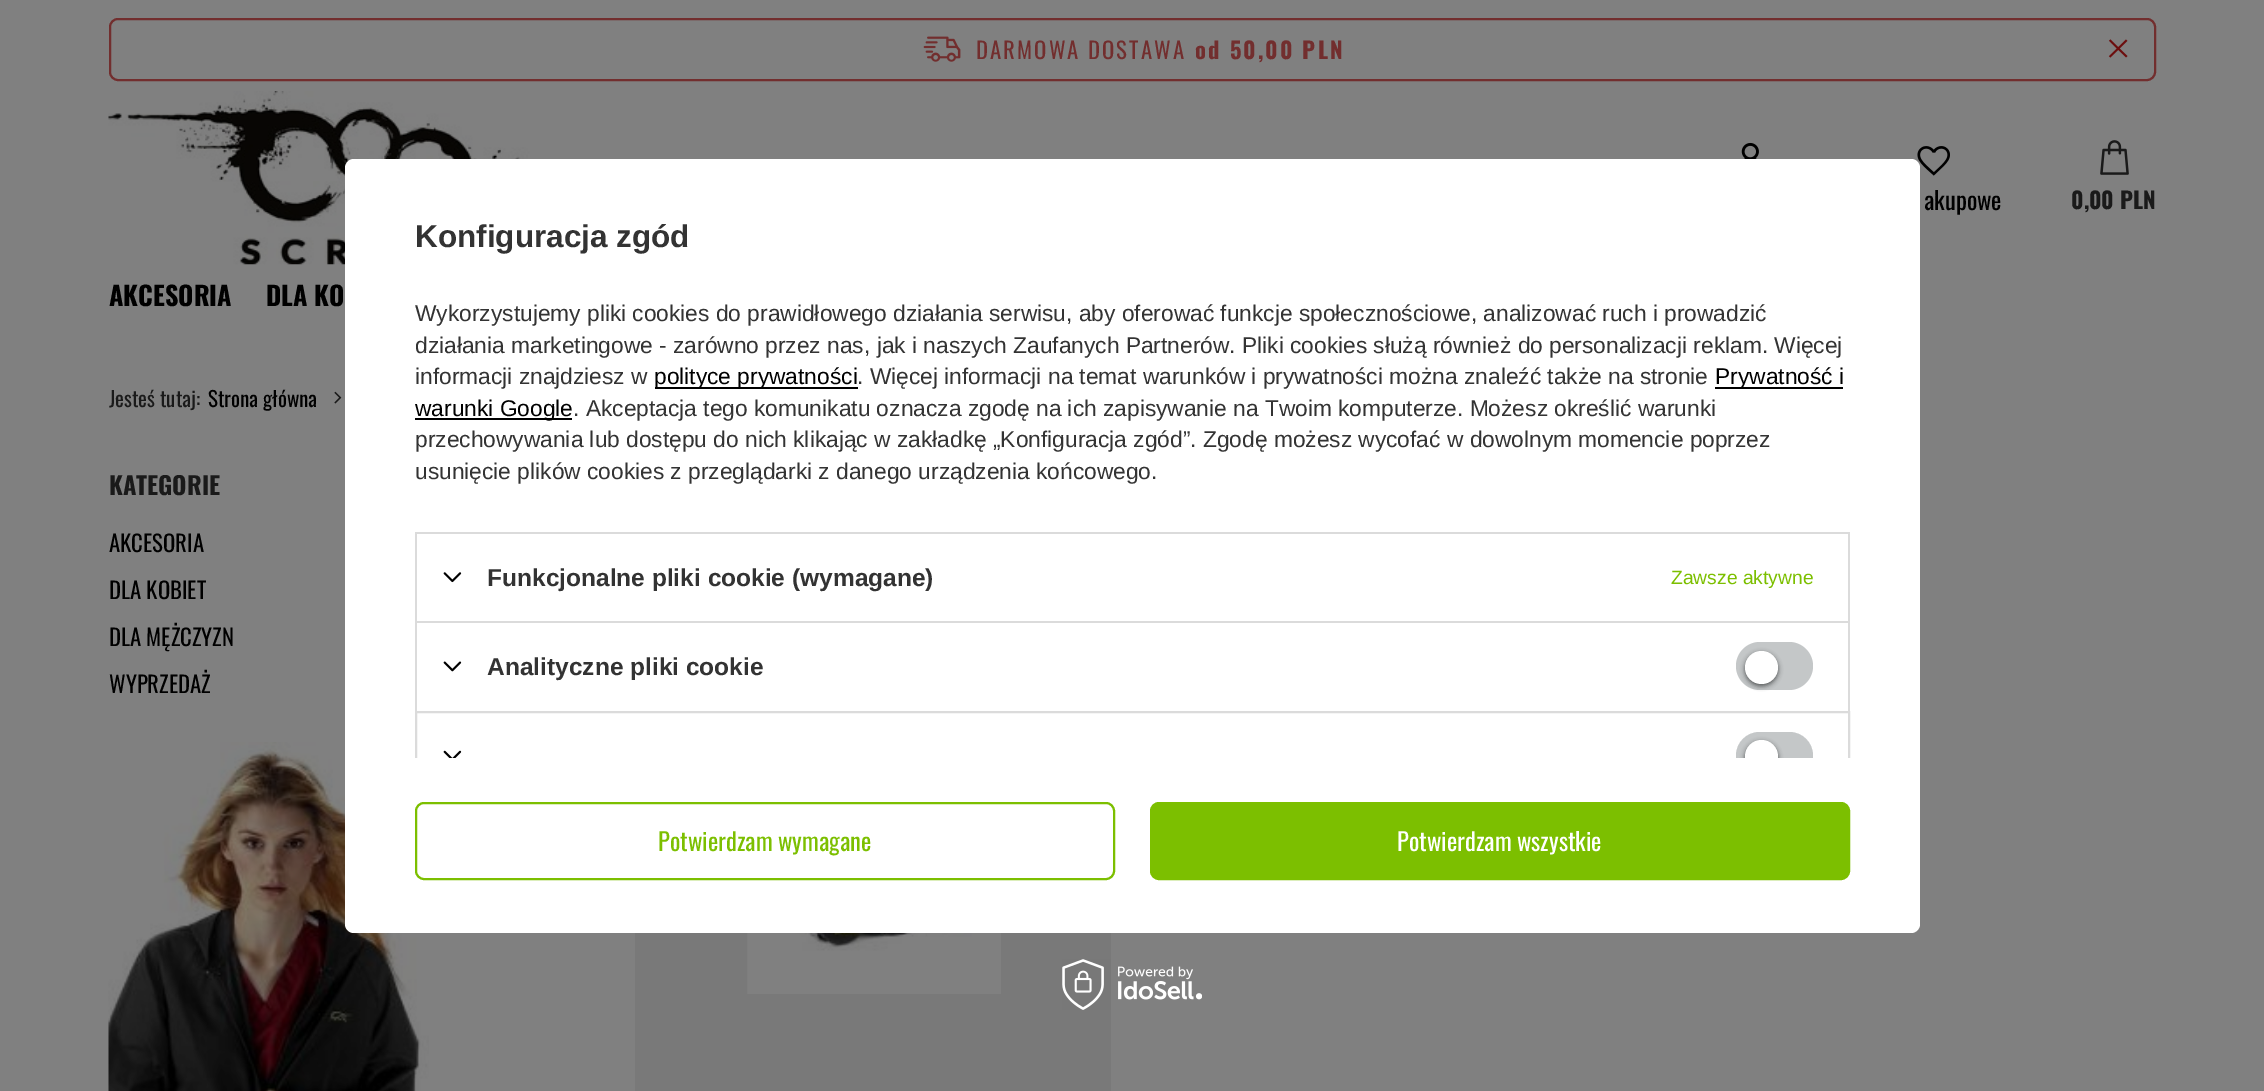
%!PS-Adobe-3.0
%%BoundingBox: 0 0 2264 1091
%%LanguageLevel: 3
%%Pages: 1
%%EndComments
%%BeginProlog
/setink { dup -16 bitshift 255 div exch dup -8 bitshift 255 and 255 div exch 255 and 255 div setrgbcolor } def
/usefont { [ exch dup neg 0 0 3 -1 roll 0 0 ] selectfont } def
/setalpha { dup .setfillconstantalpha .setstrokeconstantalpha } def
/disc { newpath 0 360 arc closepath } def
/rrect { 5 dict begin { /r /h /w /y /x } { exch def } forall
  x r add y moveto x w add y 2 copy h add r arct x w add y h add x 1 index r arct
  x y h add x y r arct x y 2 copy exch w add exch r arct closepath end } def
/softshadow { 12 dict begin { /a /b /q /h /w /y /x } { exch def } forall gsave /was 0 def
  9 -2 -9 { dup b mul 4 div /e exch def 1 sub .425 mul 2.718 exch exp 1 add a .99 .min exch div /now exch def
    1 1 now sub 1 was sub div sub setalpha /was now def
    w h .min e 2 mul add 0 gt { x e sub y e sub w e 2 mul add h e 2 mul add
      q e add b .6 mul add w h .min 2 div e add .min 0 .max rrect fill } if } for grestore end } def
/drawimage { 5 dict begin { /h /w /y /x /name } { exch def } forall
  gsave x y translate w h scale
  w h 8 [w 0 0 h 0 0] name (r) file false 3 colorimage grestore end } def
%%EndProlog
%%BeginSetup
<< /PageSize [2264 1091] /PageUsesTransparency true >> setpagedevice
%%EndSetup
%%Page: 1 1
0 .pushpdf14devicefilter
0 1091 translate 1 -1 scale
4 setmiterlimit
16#808080 setink
0 0 2264 1091 rectfill
16#722E2E setink
2 setlinewidth
110 19 2045 61 8 rrect stroke
(img1.raw) 923 36 38 26 drawimage
/Oswald-Regular 22.75 usefont
976 59 moveto 2.1 0 (DARMOWA DOSTAWA) ashow
/Oswald-Bold 22.75 usefont
1195 59 moveto 2.1 0 (od 50,00 PLN) ashow
(img2.raw) 2108 39 20 19 drawimage
(img3.raw) 108 91 447 174 drawimage
(img4.raw) 1741 142 18 17 drawimage
(img5.raw) 1917 146 33 30 drawimage
/Oswald-Regular 24.5 usefont
16#000000 setink
1924 210 moveto (akupowe) show
(img6.raw) 2100 140 29 35 drawimage
/Oswald-Bold 22.75 usefont
16#1A1A1A setink
2071 209 moveto (0,00 PLN) show
/Oswald-Bold 26.25 usefont
16#000000 setink
109 306 moveto (AKCESORIA) show
266 306 moveto (DLA KO) show
/Oswald-Regular 21 usefont
16#1A1A1A setink
109 407 moveto (Jesteś tutaj:) show
16#000000 setink
208 407 moveto (Strona główna) show
(img7.raw) 334 391 8 13 drawimage
/Oswald-Bold 24.5 usefont
16#1A1A1A setink
109 495 moveto (KATEGORIE) show
/Oswald-Regular 22.75 usefont
16#000000 setink
[
    [(AKCESORIA) 109 552]
    [(DLA KOBIET) 109 599]
    [(DLA MĘŻCZYZN) 109 646]
    [(WYPRZEDAŻ) 109 693]
] { aload pop moveto show } forall
(img8.raw) 108 742 321 349 drawimage
16#797979 setink
635 933 476 158 rectfill
(img9.raw) 747 933 254 61 drawimage
16#FFFFFF setink
345 159 1575 774 9 rrect fill
/LiberationSans-Bold 31.5 usefont
16#333333 setink
415 247 moveto (Konfiguracja zgód) show
/LiberationSans-Regular 22.75 usefont
[
    [(Wykorzystujemy pliki cookies do prawidłowego działania serwisu, aby oferować funkcje społecznościowe, analizować ruch i prowadzić) 415 321]
    [(działania marketingowe - zarówno przez nas, jak i naszych Zaufanych Partnerów. Pliki cookies służą również do personalizacji reklam. Więcej) 415 353]
    [(informacji znajdziesz w) 415 384]
] { aload pop moveto show } forall
16#000000 setink
655 387 203 2 rectfill
654 384 moveto (polityce prywatności) show
16#333333 setink
857 384 moveto (. Więcej informacji na temat warunków i prywatności można znaleźć także na stronie) show
16#000000 setink
1715 387 128 2 rectfill
1715 384 moveto (Prywatność i) show
415 418 157 2 rectfill
415 416 moveto (warunki Google) show
16#333333 setink
[
    [(. Akceptacja tego komunikatu oznacza zgodę na ich zapisywanie na Twoim komputerze. Możesz określić warunki) 573 416]
    [(przechowywania lub dostępu do nich klikając w zakładkę „Konfiguracja zgód”. Zgodę możesz wycofać w dowolnym momencie poprzez) 415 447]
    [(usunięcie plików cookies z przeglądarki z danego urządzenia końcowego.) 415 479]
] { aload pop moveto show } forall
[
    [415 532 1435 2 16#DBDBDB]
    [1848 532 2 89 16#DBDBDB]
    [415 532 2 89 16#DBDBDB]
] { aload pop setink rectfill } forall
(img10.raw) 443 572 19 11 drawimage
/LiberationSans-Bold 24.5 usefont
16#333333 setink
487 586 moveto (Funkcjonalne pliki cookie \(wymagane\)) show
/LiberationSans-Regular 19.25 usefont
16#7CBF00 setink
1671 584 moveto (Zawsze aktywne) show
[
    [415 621 1435 2 16#DBDBDB]
    [1848 621 2 90 16#DBDBDB]
    [415 621 2 90 16#DBDBDB]
] { aload pop setink rectfill } forall
(img11.raw) 443 661 19 11 drawimage
/LiberationSans-Bold 24.5 usefont
16#333333 setink
487 675 moveto (Analityczne pliki cookie) show
16#C4C7C8 setink
1736 642 77 48 24 rrect fill
16#000000 setink
1745 653 33 33 16.5 2.5 0.56 softshadow
16#FFFFFF setink
1761.5 667.5 16.5 disc fill
gsave
397 212 1470 546 rectclip
16#DBDBDB setink
416 712 1433 89 rectstroke
grestore
(img12.raw) 443 750 19 8 drawimage
gsave
397 212 1470 546 rectclip
16#C4C7C8 setink
1736 732 77 47 23.5 rrect fill
grestore
gsave
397 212 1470 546 rectclip
16#000000 setink
1745 742 33 33 16.5 2.5 0.56 softshadow
grestore
gsave
397 212 1470 546 rectclip
1745 740 33 34 16.5 rrect fill
grestore
16#7CBF00 setink
416 803 698 76 8 rrect stroke
/Oswald-Regular 24.5 usefont
658 851 moveto (Potwierdzam wymagane) show
1151 803 698 76 8 rrect gsave fill grestore
stroke
16#FFFFFF setink
1397 851 moveto (Potwierdzam wszystkie) show
(img13.raw) 1062 959 140 51 drawimage
.poppdf14devicefilter showpage
%%EOF
